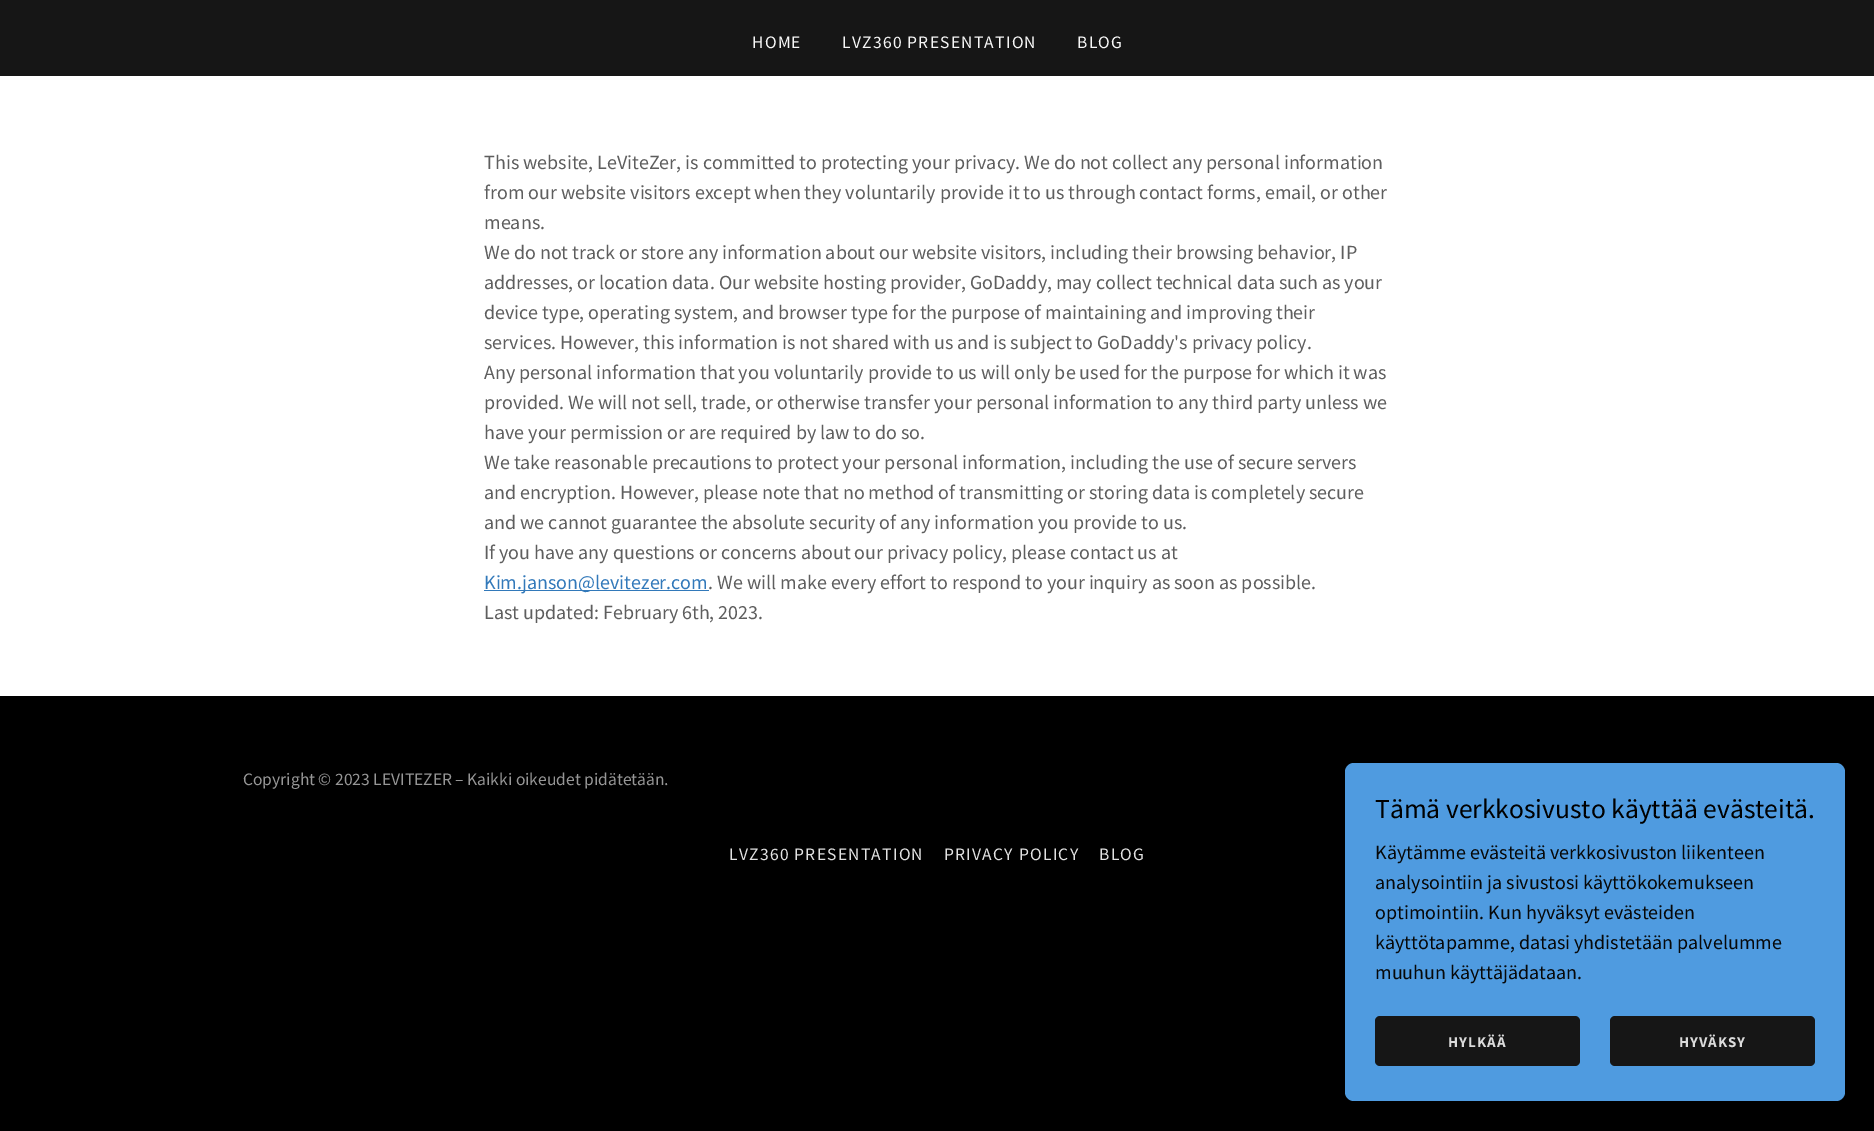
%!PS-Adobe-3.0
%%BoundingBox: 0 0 1874 1131
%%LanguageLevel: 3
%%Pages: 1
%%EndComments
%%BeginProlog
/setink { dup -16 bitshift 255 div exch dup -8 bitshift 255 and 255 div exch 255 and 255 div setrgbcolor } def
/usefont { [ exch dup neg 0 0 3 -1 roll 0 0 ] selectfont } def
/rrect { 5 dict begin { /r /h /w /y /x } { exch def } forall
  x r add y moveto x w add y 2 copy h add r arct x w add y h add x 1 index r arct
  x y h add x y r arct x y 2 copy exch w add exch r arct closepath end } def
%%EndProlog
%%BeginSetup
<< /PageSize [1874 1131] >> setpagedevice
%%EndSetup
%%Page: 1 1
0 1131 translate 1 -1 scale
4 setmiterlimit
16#000000 setink
0 0 1874 1131 rectfill
16#161616 setink
0 0 1874 76 rectfill
/SourceSansPro-Regular 17.5 usefont
16#F7F7F7 setink
752 48 moveto 1.25 0 (HOME) ashow
842 48 moveto 1.25 0 (LVZ360 PRESENTATION) ashow
1077 48 moveto 1.25 0 (BLOG) ashow
16#FFFFFF setink
0 76 1874 620 rectfill
/SourceSansPro-Regular 20 usefont
16#5E5E5E setink
[
    [(This website, LeViteZer, is committed to protecting your privacy. We do not collect any personal information) 484 169]
    [(from our website visitors except when they voluntarily provide it to us through contact forms, email, or other) 484 199]
    [(means.) 484 229]
    [(We do not track or store any information about our website visitors, including their browsing behavior, IP) 484 259]
    [(addresses, or location data. Our website hosting provider, GoDaddy, may collect technical data such as your) 484 289]
    [(device type, operating system, and browser type for the purpose of maintaining and improving their) 484 319]
    [(services. However, this information is not shared with us and is subject to GoDaddy's privacy policy.) 484 349]
    [(Any personal information that you voluntarily provide to us will only be used for the purpose for which it was) 484 379]
    [(provided. We will not sell, trade, or otherwise transfer your personal information to any third party unless we) 484 409]
    [(have your permission or are required by law to do so.) 484 439]
    [(We take reasonable precautions to protect your personal information, including the use of secure servers) 484 469]
    [(and encryption. However, please note that no method of transmitting or storing data is completely secure) 484 499]
    [(and we cannot guarantee the absolute security of any information you provide to us.) 484 529]
    [(If you have any questions or concerns about our privacy policy, please contact us at) 484 559]
] { aload pop moveto show } forall
16#3279BA setink
484 590 225 1 rectfill
484 589 moveto (Kim.janson@levitezer.com) show
16#5E5E5E setink
708 589 moveto (. We will make every effort to respond to your inquiry as soon as possible.) show
484 619 moveto (Last updated: February 6th, 2023.) show
/SourceSansPro-Regular 17.5 usefont
16#969696 setink
243 785 moveto (Copyright © 2023 LEVITEZER – Kaikki oikeudet pidätetään.) show
16#E2E2E2 setink
729 860 moveto 1.25 0 (LVZ360 PRESENTATION) ashow
944 860 moveto 1.25 0 (PRIVACY POLICY) ashow
1099 860 moveto 1.25 0 (BLOG) ashow
16#4F9BE0 setink
1345 763 500 338 9 rrect fill
/SourceSansPro-Regular 27.5 usefont
16#000000 setink
1375 818 moveto (Tämä verkkosivusto käyttää evästeitä.) show
/SourceSansPro-Regular 20 usefont
16#070808 setink
[
    [(Käytämme evästeitä verkkosivuston liikenteen) 1375 859]
    [(analysointiin ja sivustosi käyttökokemukseen) 1375 889]
    [(optimointiin. Kun hyväksyt evästeiden) 1375 919]
    [(käyttötapamme, datasi yhdistetään palvelumme) 1375 949]
    [(muuhun käyttäjädataan.) 1375 979]
] { aload pop moveto show } forall
16#161616 setink
1375 1016 205 50 5 rrect fill
/SourceSansPro-Bold 15 usefont
16#DBDBDB setink
1448 1047 moveto 1 0 (HYLKÄÄ) ashow
16#161616 setink
1610 1016 205 50 5 rrect fill
16#DBDBDB setink
1679 1047 moveto 1 0 (HYVÄKSY) ashow
showpage
%%EOF
